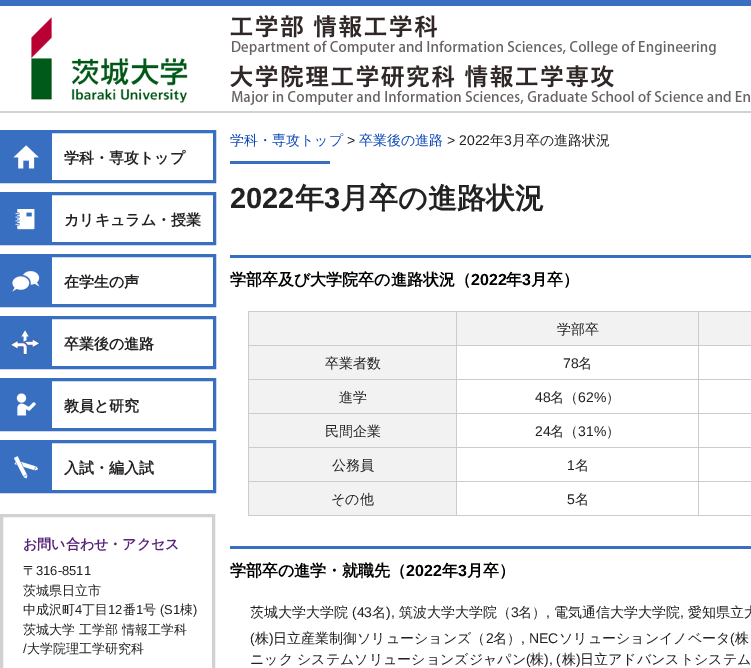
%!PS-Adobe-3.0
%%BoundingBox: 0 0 751 668
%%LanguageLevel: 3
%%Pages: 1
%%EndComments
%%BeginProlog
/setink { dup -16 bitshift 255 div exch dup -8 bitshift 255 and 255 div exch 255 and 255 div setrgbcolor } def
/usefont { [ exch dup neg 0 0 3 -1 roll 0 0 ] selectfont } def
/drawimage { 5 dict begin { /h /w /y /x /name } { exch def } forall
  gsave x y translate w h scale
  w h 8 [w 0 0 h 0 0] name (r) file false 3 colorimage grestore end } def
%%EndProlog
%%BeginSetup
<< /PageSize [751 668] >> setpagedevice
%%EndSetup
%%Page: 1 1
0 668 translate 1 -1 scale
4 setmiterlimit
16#FFFFFF setink
0 0 751 668 rectfill
16#386FC1 setink
0 0 751 6 rectfill
16#D1D2D2 setink
0 111 751 2 rectfill
(img1.raw) 31 17 157 86 drawimage
(img2.raw) 230 15 520 90 drawimage
16#386FC1 setink
3 setlinewidth
1.5 131.5 213 50 rectstroke
3 133 49 47 rectfill
(img3.raw) 13 145 26 24 drawimage
/WenQuanYiZenHei-Bold 15 usefont
16#222222 setink
64 163 moveto (学科・専攻トップ) show
16#386FC1 setink
1.5 193.5 213 50 rectstroke
3 195 49 47 rectfill
(img4.raw) 15 209 20 21 drawimage
16#222222 setink
64 225 moveto (カリキュラム・授業) show
16#386FC1 setink
1.5 255.5 213 50 rectstroke
3 257 49 47 rectfill
(img5.raw) 12 271 28 21 drawimage
16#222222 setink
64 287 moveto (在学生の声) show
16#386FC1 setink
1.5 317.5 213 50 rectstroke
3 319 49 47 rectfill
(img6.raw) 10 330 31 26 drawimage
16#222222 setink
64 349 moveto (卒業後の進路) show
16#386FC1 setink
1.5 379.5 213 50 rectstroke
3 381 49 47 rectfill
(img7.raw) 16 393 20 23 drawimage
16#222222 setink
64 411 moveto (教員と研究) show
16#386FC1 setink
1.5 441.5 213 50 rectstroke
3 443 49 47 rectfill
(img8.raw) 14 456 24 23 drawimage
16#222222 setink
64 473 moveto (入試・編入試) show
/WenQuanYiZenHei-Medium 14 usefont
16#0A47B7 setink
230 145 moveto (学科・専攻トップ) show
/LiberationSans-Regular 14 usefont
16#222222 setink
347 145 moveto (>) show
/WenQuanYiZenHei-Medium 14 usefont
16#0A47B7 setink
359 145 moveto (卒業後の進路) show
/LiberationSans-Regular 14 usefont
16#222222 setink
447 145 moveto (> 2022) show
/WenQuanYiZenHei-Medium 14 usefont
490 145 moveto (年) show
/LiberationSans-Regular 14 usefont
504 145 moveto (3) show
/WenQuanYiZenHei-Medium 14 usefont
512 145 moveto (月卒の進路状況) show
16#386FC1 setink
230 161 100 3 rectfill
/LiberationSans-Bold 29 usefont
16#222222 setink
230 208 moveto (2022) show
/WenQuanYiZenHei-Bold 29 usefont
295 208 moveto (年) show
/LiberationSans-Bold 29 usefont
324 208 moveto (3) show
/WenQuanYiZenHei-Bold 29 usefont
340 208 moveto (月卒の進路状況) show
16#386FC1 setink
230 255 521 3 rectfill
/WenQuanYiZenHei-Bold 16 usefont
16#000000 setink
230 285 moveto (学部卒及び大学院卒の進路状況（) show
/LiberationSans-Bold 16 usefont
471 285 moveto (2022) show
/WenQuanYiZenHei-Bold 16 usefont
506 285 moveto (年) show
/LiberationSans-Bold 16 usefont
522 285 moveto (3) show
/WenQuanYiZenHei-Bold 16 usefont
531 285 moveto (月卒）) show
[
    [249 312 207 33 16#F2F2F2]
    [698 311 53 1 16#CCCCCC]
    [698 345 53 1 16#CCCCCC]
    [698 379 53 1 16#CCCCCC]
    [698 413 53 1 16#CCCCCC]
    [698 447 53 1 16#CCCCCC]
    [698 481 53 1 16#CCCCCC]
    [698 515 53 1 16#CCCCCC]
    [698 481 1 35 16#CCCCCC]
    [456 481 243 1 16#CCCCCC]
    [698 447 1 35 16#CCCCCC]
    [456 447 243 1 16#CCCCCC]
    [698 413 1 35 16#CCCCCC]
    [456 413 243 1 16#CCCCCC]
    [698 379 1 35 16#CCCCCC]
    [456 379 243 1 16#CCCCCC]
    [698 345 1 35 16#CCCCCC]
    [456 345 243 1 16#CCCCCC]
    [698 311 1 35 16#CCCCCC]
    [456 311 243 1 16#CCCCCC]
    [456 515 243 1 16#CCCCCC]
    [456 481 1 35 16#CCCCCC]
    [248 481 209 1 16#CCCCCC]
    [456 447 1 35 16#CCCCCC]
    [248 447 209 1 16#CCCCCC]
    [456 413 1 35 16#CCCCCC]
    [248 413 209 1 16#CCCCCC]
    [456 379 1 35 16#CCCCCC]
    [248 379 209 1 16#CCCCCC]
    [456 345 1 35 16#CCCCCC]
    [248 345 209 1 16#CCCCCC]
    [456 311 1 35 16#CCCCCC]
    [248 311 209 1 16#CCCCCC]
    [248 515 209 1 16#CCCCCC]
    [248 481 1 35 16#CCCCCC]
    [248 447 1 35 16#CCCCCC]
    [248 413 1 35 16#CCCCCC]
    [248 379 1 35 16#CCCCCC]
    [248 345 1 35 16#CCCCCC]
    [248 311 1 35 16#CCCCCC]
    [457 312 241 33 16#F2F2F2]
] { aload pop setink rectfill } forall
/WenQuanYiZenHei-Medium 14 usefont
16#222222 setink
557 334 moveto (学部卒) show
16#F2F2F2 setink
699 312 52 33 rectfill
249 346 207 33 rectfill
16#222222 setink
325 368 moveto (卒業者数) show
/LiberationSans-Regular 14 usefont
563 368 moveto (78) show
/WenQuanYiZenHei-Medium 14 usefont
578 368 moveto (名) show
16#F2F2F2 setink
249 380 207 33 rectfill
16#222222 setink
339 402 moveto (進学) show
/LiberationSans-Regular 14 usefont
535 402 moveto (48) show
/WenQuanYiZenHei-Medium 14 usefont
550 402 moveto (名（) show
/LiberationSans-Regular 14 usefont
578 402 moveto (62%) show
/WenQuanYiZenHei-Medium 14 usefont
606 402 moveto (）) show
16#F2F2F2 setink
249 414 207 33 rectfill
16#222222 setink
325 436 moveto (民間企業) show
/LiberationSans-Regular 14 usefont
535 436 moveto (24) show
/WenQuanYiZenHei-Medium 14 usefont
550 436 moveto (名（) show
/LiberationSans-Regular 14 usefont
578 436 moveto (31%) show
/WenQuanYiZenHei-Medium 14 usefont
606 436 moveto (）) show
16#F2F2F2 setink
249 448 207 33 rectfill
16#222222 setink
332 470 moveto (公務員) show
/LiberationSans-Regular 14 usefont
567 470 moveto (1) show
/WenQuanYiZenHei-Medium 14 usefont
575 470 moveto (名) show
16#F2F2F2 setink
249 482 207 33 rectfill
16#222222 setink
331 504 moveto (その他) show
/LiberationSans-Regular 14 usefont
567 504 moveto (5) show
/WenQuanYiZenHei-Medium 14 usefont
575 504 moveto (名) show
16#386FC1 setink
230 546 521 3 rectfill
/WenQuanYiZenHei-Bold 16 usefont
16#000000 setink
230 576 moveto (学部卒の進学・就職先（) show
/LiberationSans-Bold 16 usefont
406 576 moveto (2022) show
/WenQuanYiZenHei-Bold 16 usefont
442 576 moveto (年) show
/LiberationSans-Bold 16 usefont
458 576 moveto (3) show
/WenQuanYiZenHei-Bold 16 usefont
467 576 moveto (月卒）) show
/WenQuanYiZenHei-Medium 14 usefont
16#222222 setink
250 617 moveto (茨城大学大学院) show
/LiberationSans-Regular 14 usefont
352 617 moveto (\(43) show
/WenQuanYiZenHei-Medium 14 usefont
372 617 moveto (名) show
/LiberationSans-Regular 14 usefont
386 617 moveto (\),) show
/WenQuanYiZenHei-Medium 14 usefont
399 617 moveto (筑波大学大学院（) show
/LiberationSans-Regular 14 usefont
511 617 moveto (3) show
/WenQuanYiZenHei-Medium 14 usefont
518 617 moveto (名）) show
/LiberationSans-Regular 14 usefont
546 617 moveto (,) show
/WenQuanYiZenHei-Medium 14 usefont
554 617 moveto (電気通信大学大学院) show
/LiberationSans-Regular 14 usefont
680 617 moveto (,) show
/WenQuanYiZenHei-Medium 14 usefont
688 617 moveto (愛知県立大) show
/LiberationSans-Regular 14 usefont
250 643 moveto (\() show
/WenQuanYiZenHei-Medium 14 usefont
255 643 moveto (株) show
/LiberationSans-Regular 14 usefont
269 643 moveto (\)) show
/WenQuanYiZenHei-Medium 14 usefont
273 643 moveto (日立産業制御ソリューションズ（) show
/LiberationSans-Regular 14 usefont
486 643 moveto (2) show
/WenQuanYiZenHei-Medium 14 usefont
493 643 moveto (名）) show
/LiberationSans-Regular 14 usefont
521 643 moveto (, NEC) show
/WenQuanYiZenHei-Medium 14 usefont
559 643 moveto (ソリューションイノベータ) show
/LiberationSans-Regular 14 usefont
730 643 moveto (\() show
/WenQuanYiZenHei-Medium 14 usefont
[
    [(株) 735 643]
    [(ニック) 250 664]
    [(システムソリューションズジャパン) 297 664]
] { aload pop moveto show } forall
/LiberationSans-Regular 14 usefont
526 664 moveto (\() show
/WenQuanYiZenHei-Medium 14 usefont
530 664 moveto (株) show
/LiberationSans-Regular 14 usefont
544 664 moveto (\), \() show
/WenQuanYiZenHei-Medium 14 usefont
562 664 moveto (株) show
/LiberationSans-Regular 14 usefont
576 664 moveto (\)) show
/WenQuanYiZenHei-Medium 14 usefont
580 664 moveto (日立アドバンストシステム) show
16#D1D1D1 setink
1.5 515.5 212 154 rectstroke
/WenQuanYiZenHei-Bold 14 usefont
16#582379 setink
23 549 moveto (お問い合わせ・アクセス) show
/WenQuanYiZenHei-Medium 13 usefont
16#222222 setink
23 575 moveto (〒) show
/LiberationSans-Regular 13 usefont
36 575 moveto (316-8511) show
/WenQuanYiZenHei-Medium 13 usefont
23 595 moveto (茨城県日立市) show
23 614 moveto (中成沢町) show
/LiberationSans-Regular 13 usefont
75 614 moveto (4) show
/WenQuanYiZenHei-Medium 13 usefont
82 614 moveto (丁目) show
/LiberationSans-Regular 13 usefont
108 614 moveto (12) show
/WenQuanYiZenHei-Medium 13 usefont
123 614 moveto (番) show
/LiberationSans-Regular 13 usefont
136 614 moveto (1) show
/WenQuanYiZenHei-Medium 13 usefont
143 614 moveto (号) show
/LiberationSans-Regular 13 usefont
160 614 moveto (\(S1) show
/WenQuanYiZenHei-Medium 13 usefont
180 614 moveto (棟) show
/LiberationSans-Regular 13 usefont
193 614 moveto (\)) show
/WenQuanYiZenHei-Medium 13 usefont
23 634 moveto (茨城大学 工学部 情報工学科) show
/LiberationSans-Regular 13 usefont
23 653 moveto (/) show
/WenQuanYiZenHei-Medium 13 usefont
27 653 moveto (大学院理工学研究科) show
showpage
%%EOF
